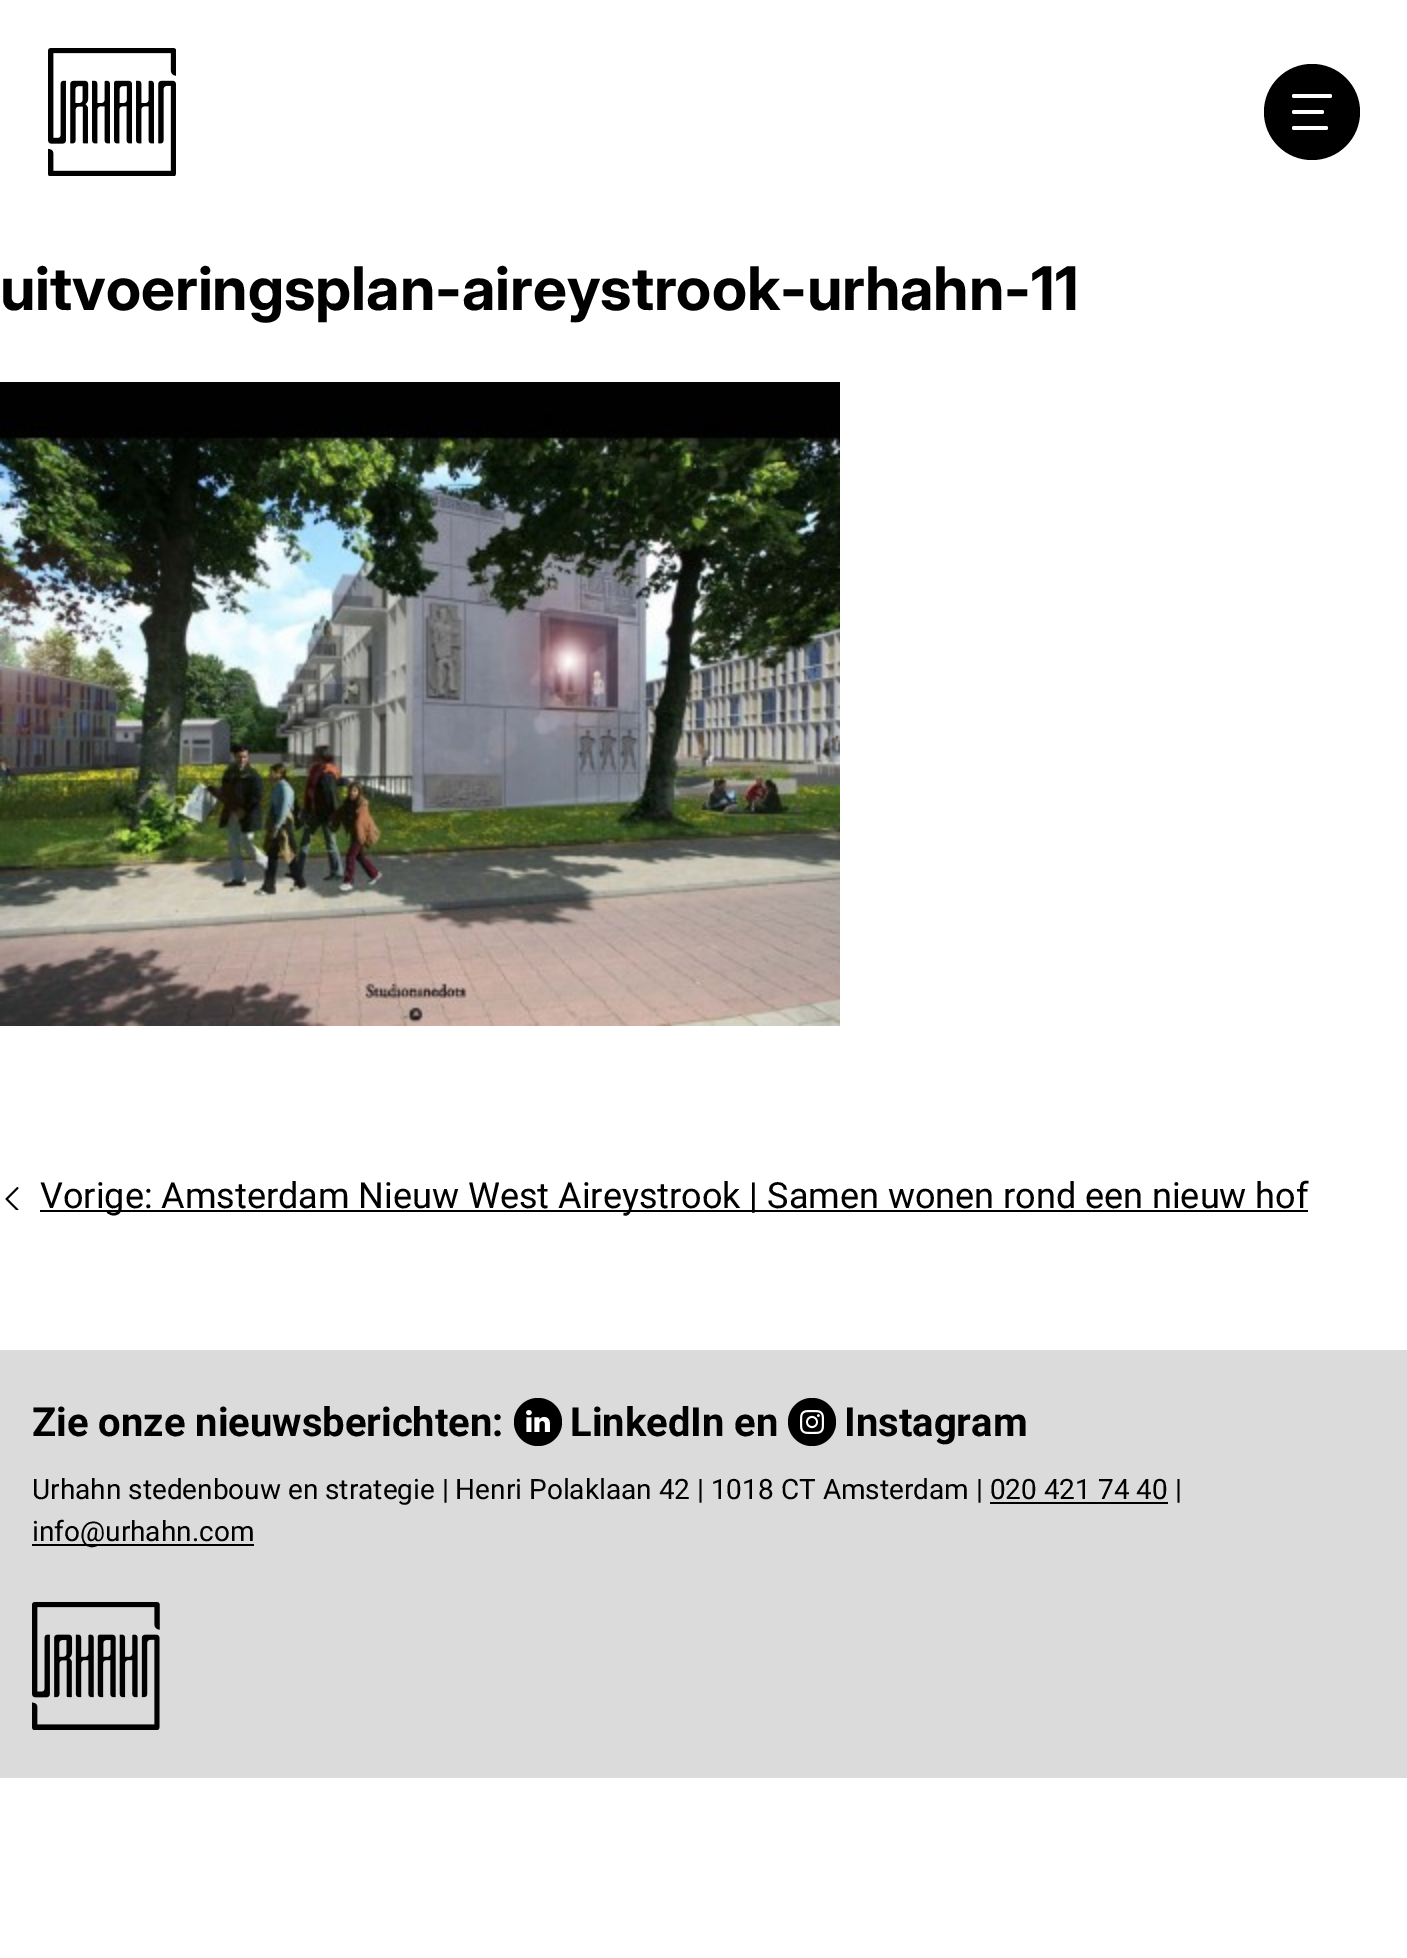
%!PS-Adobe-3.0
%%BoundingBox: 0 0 1407 1958
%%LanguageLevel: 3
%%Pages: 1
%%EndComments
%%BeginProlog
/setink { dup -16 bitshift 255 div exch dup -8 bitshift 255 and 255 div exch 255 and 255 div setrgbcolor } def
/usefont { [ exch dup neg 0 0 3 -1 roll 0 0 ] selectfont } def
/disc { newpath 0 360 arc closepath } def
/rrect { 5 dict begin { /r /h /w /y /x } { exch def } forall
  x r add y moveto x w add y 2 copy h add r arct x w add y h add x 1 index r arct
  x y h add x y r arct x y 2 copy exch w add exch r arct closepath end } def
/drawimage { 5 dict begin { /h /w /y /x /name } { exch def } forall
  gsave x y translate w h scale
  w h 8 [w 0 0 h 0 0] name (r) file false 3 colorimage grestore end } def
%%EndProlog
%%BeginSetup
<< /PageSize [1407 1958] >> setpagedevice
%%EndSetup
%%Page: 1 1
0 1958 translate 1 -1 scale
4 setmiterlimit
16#FFFFFF setink
0 0 1407 1958 rectfill
(img1.raw) 48 48 128 128 drawimage
16#000000 setink
1312 112 48 disc fill
16#FFFFFF setink
1292 94 40 4 2 rrect fill
1292 110 32 4 2 rrect fill
1292 126 36 4 2 rrect fill
/Inter-Bold 60 usefont
16#000000 setink
0 310 moveto (uitvoeringsplan-aireystrook-urhahn-11) show
(img2.raw) 0 382 840 644 drawimage
(img3.raw) 5 1187 14 23 drawimage
40 1210 1268 2 rectfill
/Roboto-Regular 36 usefont
40 1208 moveto (Vorige: Amsterdam Nieuw West Aireystrook | Samen wonen rond een nieuw hof) show
16#DBDBDB setink
0 1350 1407 428 rectfill
/Roboto-Bold 40 usefont
16#000000 setink
32 1436 moveto (Zie onze nieuwsberichten:) show
538 1422 24 disc fill
(img4.raw) 526 1410 24 22 drawimage
570 1436 moveto (LinkedIn en) show
812 1422 24 disc fill
(img5.raw) 800 1410 24 24 drawimage
844 1436 moveto (Instagram) show
/Roboto-Regular 28 usefont
32 1499 moveto (Urhahn stedenbouw en strategie | Henri Polaklaan 42 | 1018 CT Amsterdam | 020 421 74 40 |) show
990 1502 178 2 rectfill
32 1544 222 2 rectfill
32 1541 moveto (info@urhahn.com) show
(img6.raw) 32 1602 128 128 drawimage
showpage
%%EOF
